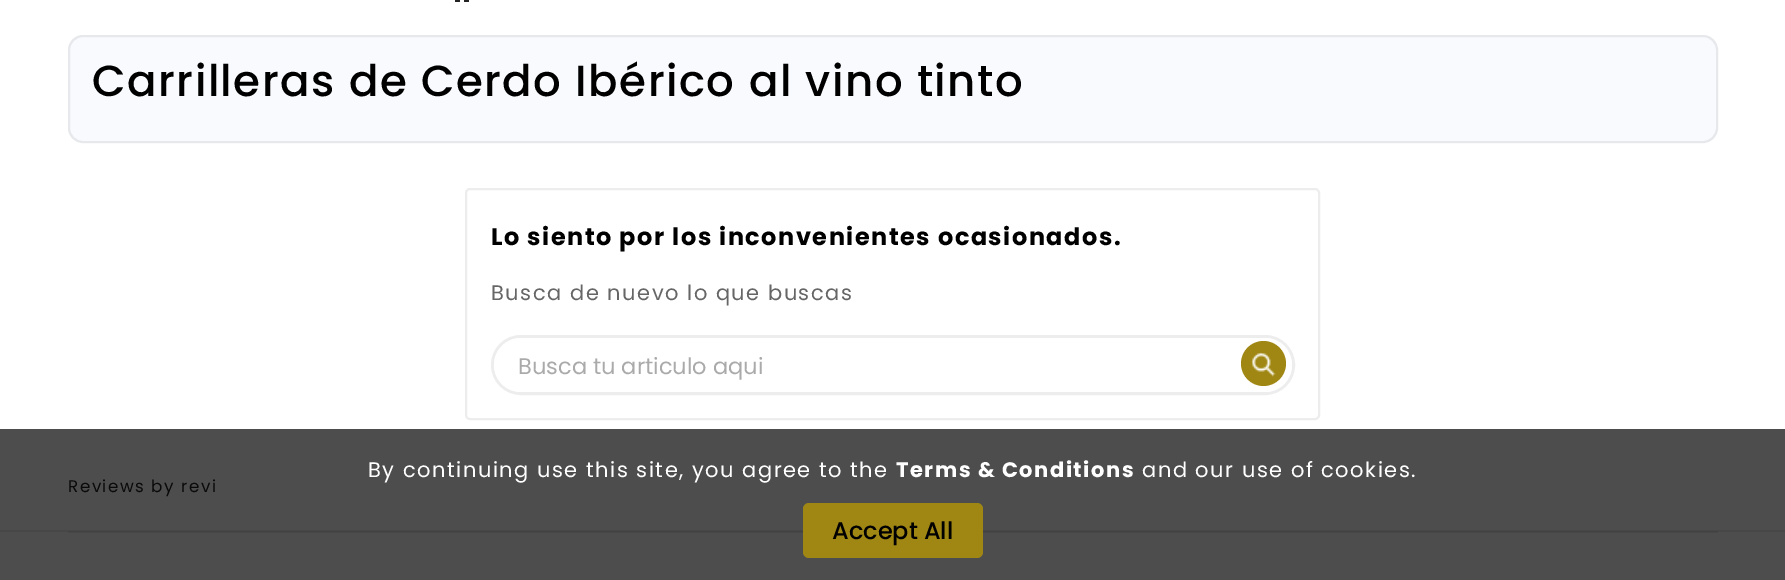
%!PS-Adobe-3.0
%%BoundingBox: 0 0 1785 580
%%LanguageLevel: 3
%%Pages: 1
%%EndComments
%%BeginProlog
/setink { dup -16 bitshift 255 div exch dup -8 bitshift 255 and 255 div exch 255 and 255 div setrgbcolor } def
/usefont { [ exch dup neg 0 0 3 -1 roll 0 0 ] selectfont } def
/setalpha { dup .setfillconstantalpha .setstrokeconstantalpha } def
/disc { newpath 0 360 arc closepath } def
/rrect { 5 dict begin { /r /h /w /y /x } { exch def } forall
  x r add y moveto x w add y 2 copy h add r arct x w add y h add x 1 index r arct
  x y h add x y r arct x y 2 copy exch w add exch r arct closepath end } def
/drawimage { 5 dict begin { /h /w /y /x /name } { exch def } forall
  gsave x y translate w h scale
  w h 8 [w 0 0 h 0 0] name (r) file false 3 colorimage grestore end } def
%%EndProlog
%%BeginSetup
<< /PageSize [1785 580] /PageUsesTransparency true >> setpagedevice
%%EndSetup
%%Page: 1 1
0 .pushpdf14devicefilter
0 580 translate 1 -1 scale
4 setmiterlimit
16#4D4D4D setink
0 0 1785 580 rectfill
16#FFFFFF setink
0 0 1785 429 rectfill
(img1.raw) 455 0 14 2 drawimage
16#F9FAFD setink
68 35 1650 108 15 rrect fill
0.07 setalpha
16#000000 setink
2 setlinewidth
69 36 1648 106 14 rrect stroke
/Poppins-Medium 43.5 usefont
1 setalpha
92 96 moveto 1.5 0 (Carrilleras de Cerdo Ibérico al vino tinto) ashow
16#EDEDED setink
466 189 853 230 4 rrect stroke
/Poppins-Bold 24 usefont
16#000000 setink
491 245 moveto 1.5 0 (Lo siento por los inconvenientes ocasionados.) ashow
/Poppins-Regular 21 usefont
16#666666 setink
491 300 moveto 1.5 0 (Busca de nuevo lo que buscas) ashow
16#EDEDED setink
3 setlinewidth
492.5 336.5 801 57 28.5 rrect stroke
16#FFFFFF setink
521 338 moveto 1235 338 lineto 1235 392 lineto 521 392 lineto 506 392 494 380 494 365 curveto 494 350 506 338 521 338 curveto closepath fill
/Poppins-Regular 22.5 usefont
16#AAAAAA setink
518 374 moveto (Busca tu articulo aqui) show
16#FFFFFF setink
1235 338 moveto 1265 338 lineto 1280 338 1292 350 1292 365 curveto 1292 380 1280 392 1265 392 curveto 1235 392 lineto closepath fill
16#A08714 setink
1263.5 363.5 22.5 disc fill
(img2.raw) 1251 352 25 25 drawimage
/Poppins-Regular 16.75 usefont
16#0A0A0A setink
68 492 moveto 1.5 0 (Reviews by revi) ashow
[
    [68 532 1650 1 16#474747]
    [0 530 1785 2 16#474747]
    [68 531 1650 1 16#424242]
] { aload pop setink rectfill } forall
/Poppins-Regular 21 usefont
16#FFFFFF setink
368 477 moveto 1.5 0 (By continuing use this site, you agree to the) ashow
/Poppins-Bold 21 usefont
896 477 moveto 1.5 0 (Terms & Conditions) ashow
/Poppins-Regular 21 usefont
1142 477 moveto 1.5 0 (and our use of cookies.) ashow
16#A08714 setink
803 503 180 55 6 rrect fill
/Poppins-Medium 24 usefont
16#000000 setink
832 539 moveto (Accept All) show
.poppdf14devicefilter showpage
%%EOF
